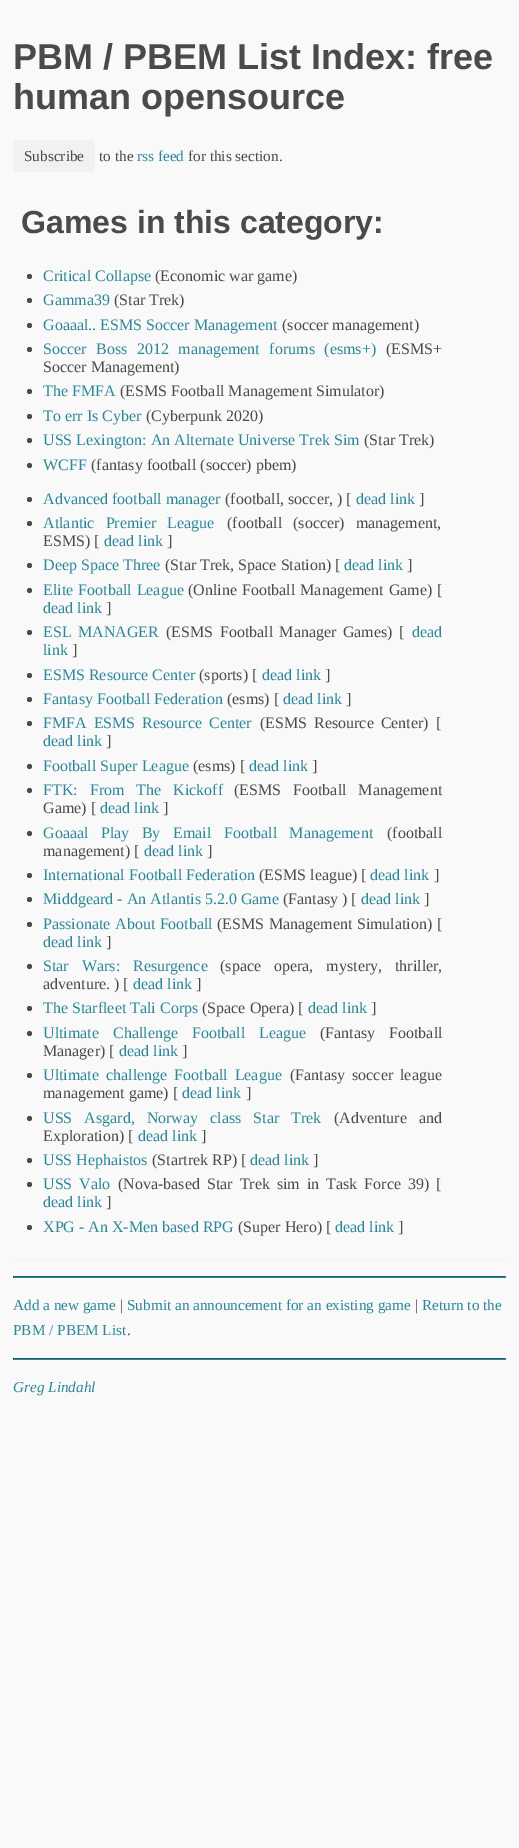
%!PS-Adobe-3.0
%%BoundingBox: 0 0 519 1848
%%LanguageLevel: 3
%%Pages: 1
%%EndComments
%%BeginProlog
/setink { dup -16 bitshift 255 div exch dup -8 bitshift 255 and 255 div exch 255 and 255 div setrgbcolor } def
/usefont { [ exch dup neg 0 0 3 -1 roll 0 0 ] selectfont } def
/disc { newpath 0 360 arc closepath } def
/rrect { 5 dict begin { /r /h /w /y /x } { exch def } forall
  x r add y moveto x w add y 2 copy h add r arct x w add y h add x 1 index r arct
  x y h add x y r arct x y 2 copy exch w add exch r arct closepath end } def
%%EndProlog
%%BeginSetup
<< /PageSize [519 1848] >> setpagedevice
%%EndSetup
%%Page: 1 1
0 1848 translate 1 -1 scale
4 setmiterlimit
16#F9F9F9 setink
0 0 519 1848 rectfill
/LiberationSans-Bold 36 usefont
16#4A4A4A setink
13 69 moveto (PBM / PBEM List Index: free) show
13 109 moveto (human opensource) show
16#F1F1F1 setink
13 140 82 32 4 rrect fill
/LiberationSerif-Regular 15.25 usefont
16#4A4A4A setink
24 161 moveto (Subscribe) show
99 161 moveto (to the) show
16#2C8898 setink
137 161 moveto (rss feed) show
16#4A4A4A setink
188 161 moveto (for this section.) show
/LiberationSans-Bold 32 usefont
21 233 moveto (Games in this category:) show
29.5 276.5 2.5 disc fill
/LiberationSerif-Regular 16 usefont
16#2C8898 setink
43 281 moveto (Critical Collapse) show
16#4A4A4A setink
155 281 moveto (\(Economic war game\)) show
29.5 300.5 2.5 disc fill
16#2C8898 setink
43 305 moveto (Gamma39) show
16#4A4A4A setink
114 305 moveto (\(Star Trek\)) show
29.5 325.5 2.5 disc fill
16#2C8898 setink
43 330 moveto (Goaaal.. ESMS Soccer Management) show
16#4A4A4A setink
282 330 moveto (\(soccer management\)) show
29.5 349.5 2.5 disc fill
16#2C8898 setink
43 354 moveto 5.5 0 32 (Soccer Boss 2012 management forums \(esms+\)) widthshow
16#4A4A4A setink
386 354 moveto (\(ESMS+) show
43 372 moveto (Soccer Management\)) show
29.5 391.5 2.5 disc fill
16#2C8898 setink
43 396 moveto (The FMFA) show
16#4A4A4A setink
120 396 moveto (\(ESMS Football Management Simulator\)) show
29.5 416.5 2.5 disc fill
16#2C8898 setink
43 421 moveto (To err Is Cyber) show
16#4A4A4A setink
146 421 moveto (\(Cyberpunk 2020\)) show
29.5 440.5 2.5 disc fill
16#2C8898 setink
43 445 moveto (USS Lexington: An Alternate Universe Trek Sim) show
16#4A4A4A setink
364 445 moveto (\(Star Trek\)) show
29.5 465.5 2.5 disc fill
16#2C8898 setink
43 470 moveto (WCFF) show
16#4A4A4A setink
91 470 moveto (\(fantasy football \(soccer\) pbem\)) show
29.5 499.5 2.5 disc fill
16#2C8898 setink
43 504 moveto (Advanced football manager) show
16#4A4A4A setink
225 504 moveto (\(football, soccer, \) [) show
16#2C8898 setink
356 504 moveto (dead link) show
16#4A4A4A setink
419 504 moveto (]) show
29.5 523.5 2.5 disc fill
16#2C8898 setink
43 528 moveto 7 0 32 (Atlantic Premier League) widthshow
16#4A4A4A setink
227 528 moveto 7 0 32 (\(football \(soccer\) management,) widthshow
43 546 moveto (ESMS\) [) show
16#2C8898 setink
104 546 moveto (dead link) show
16#4A4A4A setink
167 546 moveto (]) show
29.5 565.5 2.5 disc fill
16#2C8898 setink
43 570 moveto (Deep Space Three) show
16#4A4A4A setink
165 570 moveto (\(Star Trek, Space Station\) [) show
16#2C8898 setink
344 570 moveto (dead link) show
16#4A4A4A setink
407 570 moveto (]) show
29.5 590.5 2.5 disc fill
16#2C8898 setink
43 595 moveto 1 0 32 (Elite Football League) widthshow
16#4A4A4A setink
188 595 moveto 1 0 32 (\(Online Football Management Game\) [) widthshow
16#2C8898 setink
43 613 moveto (dead link) show
16#4A4A4A setink
106 613 moveto (]) show
29.5 632.5 2.5 disc fill
16#2C8898 setink
43 637 moveto 2.5 0 32 (ESL MANAGER) widthshow
16#4A4A4A setink
166 637 moveto 2.5 0 32 (\(ESMS Football Manager Games\) [) widthshow
16#2C8898 setink
412 637 moveto (dead) show
43 655 moveto (link) show
16#4A4A4A setink
72 655 moveto (]) show
29.5 675.5 2.5 disc fill
16#2C8898 setink
43 680 moveto (ESMS Resource Center) show
16#4A4A4A setink
199 680 moveto (\(sports\) [) show
16#2C8898 setink
262 680 moveto (dead link) show
16#4A4A4A setink
325 680 moveto (]) show
29.5 699.5 2.5 disc fill
16#2C8898 setink
43 704 moveto (Fantasy Football Federation) show
16#4A4A4A setink
227 704 moveto (\(esms\) [) show
16#2C8898 setink
283 704 moveto (dead link) show
16#4A4A4A setink
346 704 moveto (]) show
29.5 723.5 2.5 disc fill
16#2C8898 setink
43 728 moveto 3 0 32 (FMFA ESMS Resource Center) widthshow
16#4A4A4A setink
260 728 moveto 3 0 32 (\(ESMS Resource Center\) [) widthshow
16#2C8898 setink
43 746 moveto (dead link) show
16#4A4A4A setink
106 746 moveto (]) show
29.5 766.5 2.5 disc fill
16#2C8898 setink
43 771 moveto (Football Super League) show
16#4A4A4A setink
193 771 moveto (\(esms\) [) show
16#2C8898 setink
249 771 moveto (dead link) show
16#4A4A4A setink
312 771 moveto (]) show
29.5 790.5 2.5 disc fill
16#2C8898 setink
43 795 moveto 8 0 32 (FTK: From The Kickoff) widthshow
16#4A4A4A setink
234 795 moveto 8 0 32 (\(ESMS Football Management) widthshow
43 813 moveto (Game\) [) show
16#2C8898 setink
100 813 moveto (dead link) show
16#4A4A4A setink
163 813 moveto (]) show
29.5 833.5 2.5 disc fill
16#2C8898 setink
43 838 moveto 8.5 0 32 (Goaaal Play By Email Football Management) widthshow
16#4A4A4A setink
387 838 moveto (\(football) show
43 856 moveto (management\) [) show
16#2C8898 setink
144 856 moveto (dead link) show
16#4A4A4A setink
207 856 moveto (]) show
29.5 875.5 2.5 disc fill
16#2C8898 setink
43 880 moveto (International Football Federation) show
16#4A4A4A setink
259 880 moveto (\(ESMS league\) [) show
16#2C8898 setink
370 880 moveto (dead link) show
16#4A4A4A setink
434 880 moveto (]) show
29.5 899.5 2.5 disc fill
16#2C8898 setink
43 904 moveto (Middgeard - An Atlantis 5.2.0 Game) show
16#4A4A4A setink
283 904 moveto (\(Fantasy \) [) show
16#2C8898 setink
361 904 moveto (dead link) show
16#4A4A4A setink
424 904 moveto (]) show
29.5 924.5 2.5 disc fill
16#2C8898 setink
43 929 moveto 0.5 0 32 (Passionate About Football) widthshow
16#4A4A4A setink
217 929 moveto 0.5 0 32 (\(ESMS Management Simulation\) [) widthshow
16#2C8898 setink
43 947 moveto (dead link) show
16#4A4A4A setink
106 947 moveto (]) show
29.5 966.5 2.5 disc fill
16#2C8898 setink
43 971 moveto 9 0 32 (Star Wars: Resurgence) widthshow
16#4A4A4A setink
220 971 moveto 9 0 32 (\(space opera, mystery, thriller,) widthshow
43 989 moveto (adventure. \) [) show
16#2C8898 setink
133 989 moveto (dead link) show
16#4A4A4A setink
196 989 moveto (]) show
29.5 1008.5 2.5 disc fill
16#2C8898 setink
43 1013 moveto (The Starfleet Tali Corps) show
16#4A4A4A setink
202 1013 moveto (\(Space Opera\) [) show
16#2C8898 setink
308 1013 moveto (dead link) show
16#4A4A4A setink
371 1013 moveto (]) show
29.5 1033.5 2.5 disc fill
16#2C8898 setink
43 1038 moveto 10 0 32 (Ultimate Challenge Football League) widthshow
16#4A4A4A setink
320 1038 moveto 10 0 32 (\(Fantasy Football) widthshow
43 1056 moveto (Manager\) [) show
16#2C8898 setink
119 1056 moveto (dead link) show
16#4A4A4A setink
182 1056 moveto (]) show
29.5 1075.5 2.5 disc fill
16#2C8898 setink
43 1080 moveto 3 0 32 (Ultimate challenge Football League) widthshow
16#4A4A4A setink
290 1080 moveto 3 0 32 (\(Fantasy soccer league) widthshow
43 1098 moveto (management game\) [) show
16#2C8898 setink
182 1098 moveto (dead link) show
16#4A4A4A setink
246 1098 moveto (]) show
29.5 1118.5 2.5 disc fill
16#2C8898 setink
43 1123 moveto 8 0 32 (USS Asgard, Norway class Star Trek) widthshow
16#4A4A4A setink
334 1123 moveto 8 0 32 (\(Adventure and) widthshow
43 1141 moveto (Exploration\) [) show
16#2C8898 setink
138 1141 moveto (dead link) show
16#4A4A4A setink
201 1141 moveto (]) show
29.5 1160.5 2.5 disc fill
16#2C8898 setink
43 1165 moveto (USS Hephaistos) show
16#4A4A4A setink
152 1165 moveto (\(Startrek RP\) [) show
16#2C8898 setink
250 1165 moveto (dead link) show
16#4A4A4A setink
313 1165 moveto (]) show
29.5 1184.5 2.5 disc fill
16#2C8898 setink
43 1189 moveto 3 0 32 (USS Valo) widthshow
16#4A4A4A setink
118 1189 moveto 3 0 32 (\(Nova-based Star Trek sim in Task Force 39\) [) widthshow
16#2C8898 setink
43 1207 moveto (dead link) show
16#4A4A4A setink
106 1207 moveto (]) show
29.5 1227.5 2.5 disc fill
16#2C8898 setink
43 1232 moveto (XPG - An X-Men based RPG) show
16#4A4A4A setink
238 1232 moveto (\(Super Hero\) [) show
16#2C8898 setink
335 1232 moveto (dead link) show
16#4A4A4A setink
398 1232 moveto (]) show
[
    [13 1260 494 1 16#F1F1F1]
    [13 1276 493 1 16#1D5B65]
    [505 1276 1 2 16#2C8898]
    [13 1277 493 1 16#2C8898]
    [13 1276 1 2 16#1D5B65]
] { aload pop setink rectfill } forall
/LiberationSerif-Regular 15.25 usefont
16#2C8898 setink
13 1310 moveto (Add a new game) show
16#4A4A4A setink
120 1310 moveto (|) show
16#2C8898 setink
127 1310 moveto (Submit an announcement for an existing game) show
16#4A4A4A setink
415 1310 moveto (|) show
16#2C8898 setink
422 1310 moveto (Return to the) show
13 1335 moveto (PBM / PBEM List) show
16#4A4A4A setink
127 1335 moveto (.) show
[
    [13 1358 493 1 16#1D5B65]
    [505 1358 1 2 16#2C8898]
    [13 1359 493 1 16#2C8898]
    [13 1358 1 2 16#1D5B65]
] { aload pop setink rectfill } forall
/LiberationSerif-Italic 15.25 usefont
16#2C8898 setink
13 1392 moveto (Greg Lindahl) show
showpage
%%EOF
